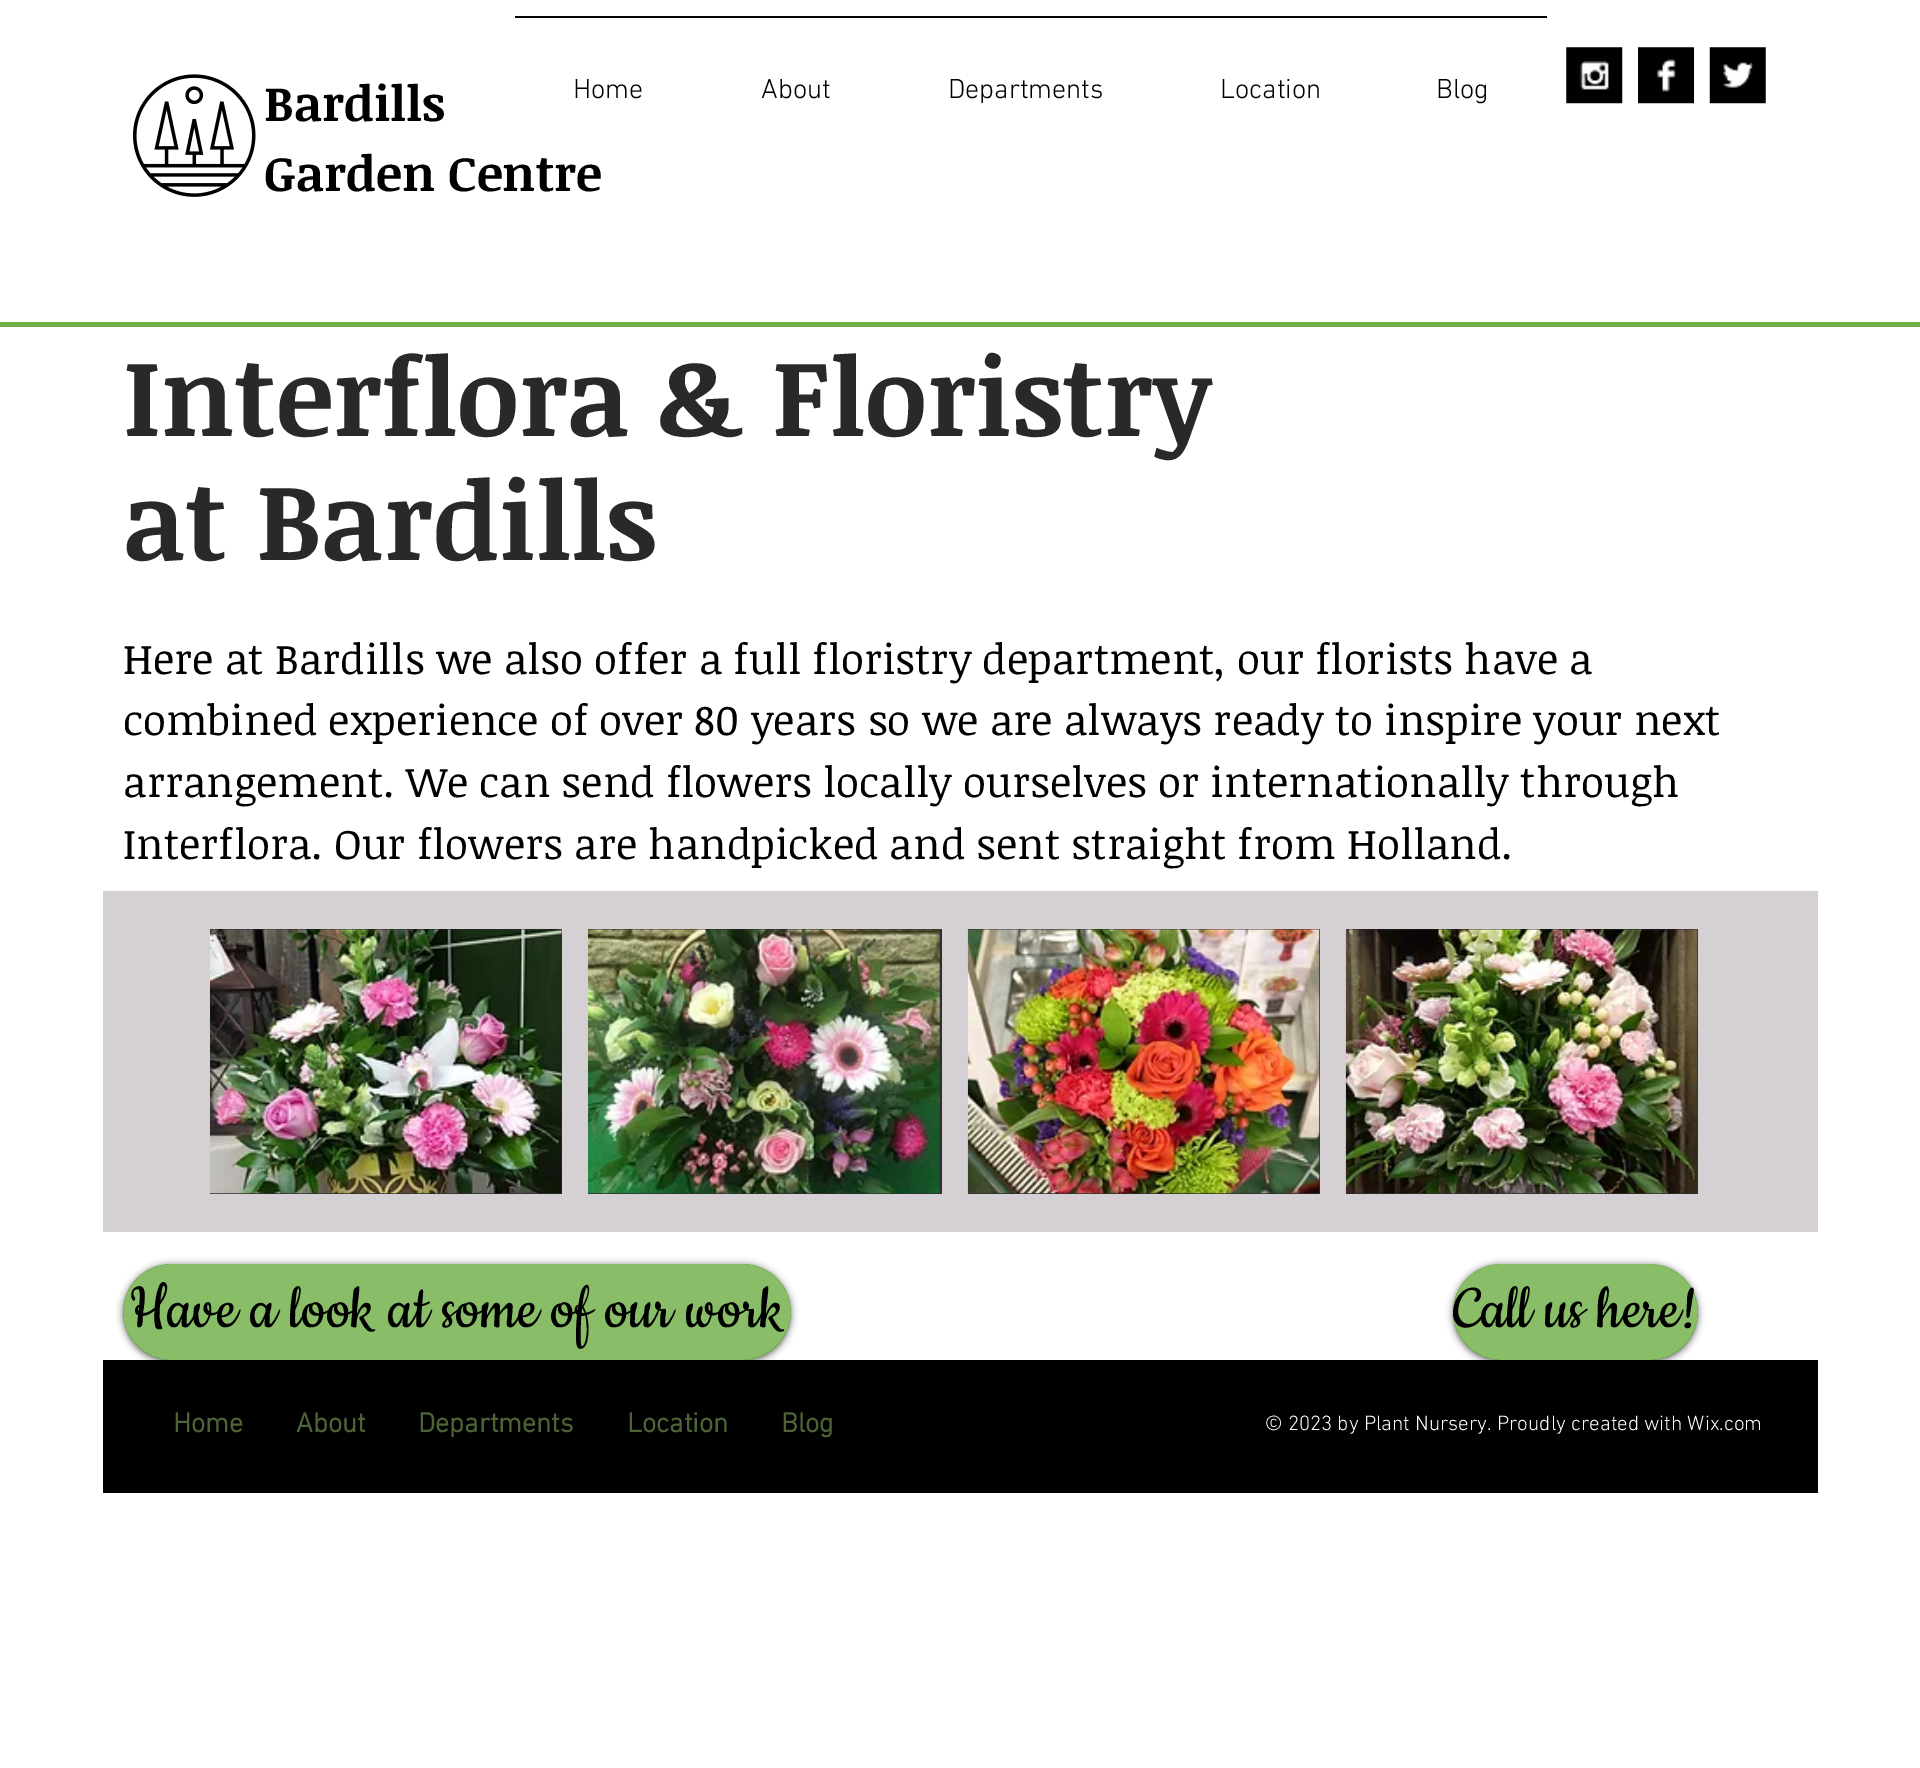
%!PS-Adobe-3.0
%%BoundingBox: 0 0 1920 1768
%%LanguageLevel: 3
%%Pages: 1
%%EndComments
%%BeginProlog
/setink { dup -16 bitshift 255 div exch dup -8 bitshift 255 and 255 div exch 255 and 255 div setrgbcolor } def
/usefont { [ exch dup neg 0 0 3 -1 roll 0 0 ] selectfont } def
/setalpha { dup .setfillconstantalpha .setstrokeconstantalpha } def
/rrect { 5 dict begin { /r /h /w /y /x } { exch def } forall
  x r add y moveto x w add y 2 copy h add r arct x w add y h add x 1 index r arct
  x y h add x y r arct x y 2 copy exch w add exch r arct closepath end } def
/softshadow { 12 dict begin { /a /b /q /h /w /y /x } { exch def } forall gsave /was 0 def
  9 -2 -9 { dup b mul 4 div /e exch def 1 sub .425 mul 2.718 exch exp 1 add a .99 .min exch div /now exch def
    1 1 now sub 1 was sub div sub setalpha /was now def
    w h .min e 2 mul add 0 gt { x e sub y e sub w e 2 mul add h e 2 mul add
      q e add b .6 mul add w h .min 2 div e add .min 0 .max rrect fill } if } for grestore end } def
/drawimage { 5 dict begin { /h /w /y /x /name } { exch def } forall
  gsave x y translate w h scale
  w h 8 [w 0 0 h 0 0] name (r) file false 3 colorimage grestore end } def
%%EndProlog
%%BeginSetup
<< /PageSize [1920 1768] /PageUsesTransparency true >> setpagedevice
%%EndSetup
%%Page: 1 1
0 .pushpdf14devicefilter
0 1768 translate 1 -1 scale
4 setmiterlimit
16#FFFFFF setink
0 0 1920 1768 rectfill
(img1.raw) 133 74 123 123 drawimage
/NoticiaText-Bold 49 usefont
16#000000 setink
264 121 moveto (Bardills) show
264 191 moveto (Garden Centre) show
515 16 1032 2 rectfill
/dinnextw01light-Light 28 usefont
[
    [(Home) 573 98]
    [(About) 761 98]
    [(Departments) 948 98]
    [(Location) 1220 98]
    [(Blog) 1436 98]
] { aload pop moveto show } forall
(img2.raw) 1566 47 57 57 drawimage
(img3.raw) 1638 47 56 57 drawimage
(img4.raw) 1709 47 57 57 drawimage
16#6FAF46 setink
0 322 1920 5 rectfill
/NoticiaText-Bold 108.5 usefont
16#292929 setink
123 436 moveto (Interflora & Floristry) show
123 560 moveto (at Bardills) show
/NoticiaText-Regular 42 usefont
16#000000 setink
[
    [(Here at Bardills we also offer a full floristry department, our florists have a) 123 674]
    [(combined experience of over 80 years so we are always ready to inspire your next) 123 735]
    [(arrangement. We can send flowers locally ourselves or internationally through) 123 797]
    [(Interflora. Our flowers are handpicked and sent straight from Holland.) 123 859]
] { aload pop moveto show } forall
16#D4D0D3 setink
103 891 1715 341 rectfill
16#2F2E2E setink
210 929 352 265 rectfill
(img5.raw) 210 929 352 265 drawimage
588 929 354 265 rectfill
(img6.raw) 588 929 352 265 drawimage
968 929 352 265 rectfill
(img7.raw) 967 929 353 265 drawimage
1346 929 352 265 rectfill
(img8.raw) 1345 929 353 265 drawimage
gsave
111 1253 moveto 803 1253 lineto 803 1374 lineto 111 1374 lineto closepath 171 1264 moveto 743 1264 lineto 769.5 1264 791 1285.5 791 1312 curveto 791 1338.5 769.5 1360 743 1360 curveto 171 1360 lineto 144.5 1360 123 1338.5 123 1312 curveto 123 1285.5 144.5 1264 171 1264 curveto closepath eoclip newpath
16#000000 setink
123 1265 668 97 48.5 3.5 0.6 softshadow
grestore
0.82 setalpha
16#6FAF46 setink
123 1264 668 96 48 rrect fill
/Cookie-Regular 68.25 usefont
1 setalpha
16#000000 setink
129 1327 moveto (Have a look at some of our work) show
gsave
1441 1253 moveto 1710 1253 lineto 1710 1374 lineto 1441 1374 lineto closepath 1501 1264 moveto 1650 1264 lineto 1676.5 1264 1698 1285.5 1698 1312 curveto 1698 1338.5 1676.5 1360 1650 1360 curveto 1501 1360 lineto 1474.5 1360 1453 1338.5 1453 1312 curveto 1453 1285.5 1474.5 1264 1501 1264 curveto closepath eoclip newpath
1453 1265 245 97 48.5 3.5 0.6 softshadow
grestore
0.82 setalpha
16#6FAF46 setink
1453 1264 245 96 48 rrect fill
1 setalpha
16#000000 setink
1453 1327 moveto (Call us here!) show
103 1360 1715 133 rectfill
/dinnextw01light-Bold 28 usefont
16#4C6335 setink
[
    [(Home) 173 1432]
    [(About) 296 1432]
    [(Departments) 418 1432]
    [(Location) 627 1432]
    [(Blog) 781 1432]
] { aload pop moveto show } forall
/dinnextw01light-Light 21 usefont
16#FFFFFF setink
1265 1430 moveto (© 2023 by Plant Nursery. Proudly created with Wix.com) show
.poppdf14devicefilter showpage
%%EOF
